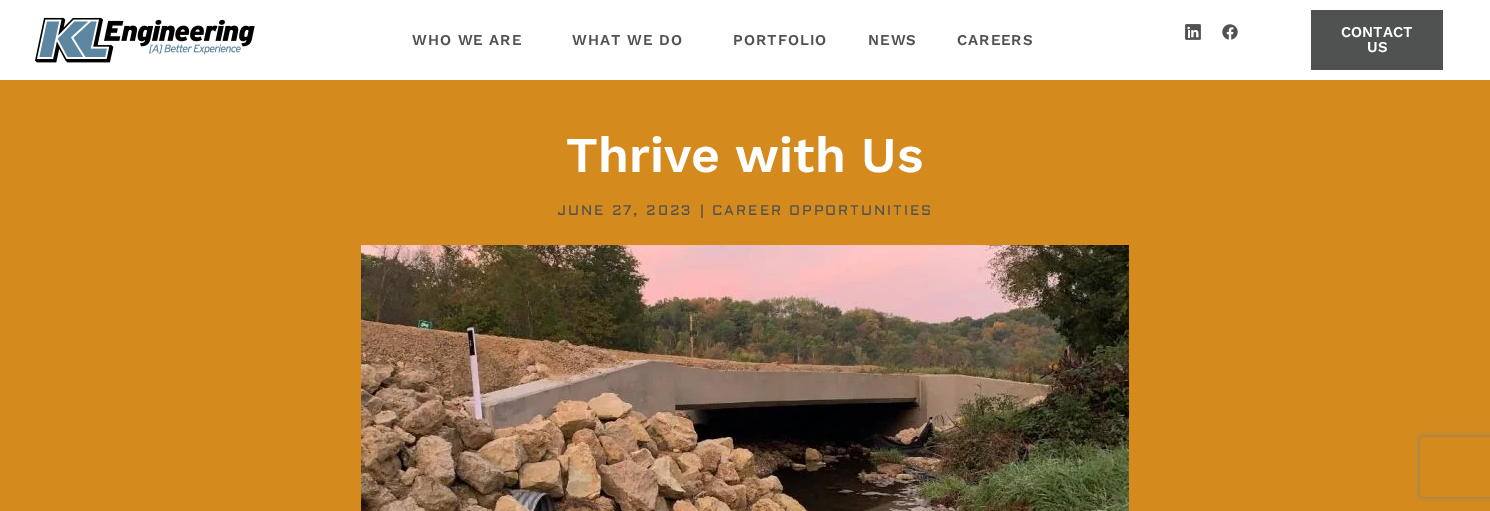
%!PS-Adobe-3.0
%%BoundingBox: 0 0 1490 511
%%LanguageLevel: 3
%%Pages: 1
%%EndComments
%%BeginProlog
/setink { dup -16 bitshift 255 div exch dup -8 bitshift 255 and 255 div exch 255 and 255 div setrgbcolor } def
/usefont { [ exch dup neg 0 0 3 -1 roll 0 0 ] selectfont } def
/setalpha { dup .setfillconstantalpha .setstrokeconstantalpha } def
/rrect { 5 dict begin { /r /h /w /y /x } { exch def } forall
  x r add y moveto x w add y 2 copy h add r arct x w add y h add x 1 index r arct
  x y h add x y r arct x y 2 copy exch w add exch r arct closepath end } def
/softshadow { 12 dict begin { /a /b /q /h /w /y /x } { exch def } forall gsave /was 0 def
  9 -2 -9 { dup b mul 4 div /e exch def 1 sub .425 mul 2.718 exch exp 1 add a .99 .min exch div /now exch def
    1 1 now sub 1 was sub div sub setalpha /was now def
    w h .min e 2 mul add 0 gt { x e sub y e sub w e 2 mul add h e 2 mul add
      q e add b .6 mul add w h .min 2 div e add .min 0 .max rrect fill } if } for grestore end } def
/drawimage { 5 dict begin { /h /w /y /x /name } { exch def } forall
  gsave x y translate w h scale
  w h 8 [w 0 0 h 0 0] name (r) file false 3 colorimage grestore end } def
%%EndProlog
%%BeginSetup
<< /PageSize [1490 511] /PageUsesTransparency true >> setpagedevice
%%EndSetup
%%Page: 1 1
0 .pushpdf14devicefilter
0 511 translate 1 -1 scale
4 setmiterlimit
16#FFFFFF setink
0 0 1490 511 rectfill
(img1.raw) 35 17 220 46 drawimage
/WorkSans-SemiBold 15 usefont
16#4F5251 setink
412 45 moveto 1 0 (WHO WE ARE) ashow
572 45 moveto 1 0 (WHAT WE DO) ashow
733 45 moveto 1 0 (PORTFOLIO) ashow
868 45 moveto 1 0 (NEWS) ashow
957 45 moveto 1 0 (CAREERS) ashow
(img2.raw) 1185 24 16 16 drawimage
(img3.raw) 1222 24 16 16 drawimage
1311 10 132 60 rectfill
16#FFFFFF setink
1341 37 moveto (CONTACT) show
1367 52 moveto (US) show
16#D48A1D setink
0 80 1490 431 rectfill
/WorkSans-SemiBold 50 usefont
16#FFFFFF setink
566 172 moveto (Thrive with Us) show
/Aldrich-Regular 14 usefont
16#4F5251 setink
557 215 moveto 2 0 (JUNE 27, 2023) ashow
700 215 moveto 2 0 (| CAREER OPPORTUNITIES) ashow
(img4.raw) 361 245 768 266 drawimage
gsave
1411 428 moveto 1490 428 lineto 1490 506 lineto 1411 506 lineto closepath 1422 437 moveto 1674 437 lineto 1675 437 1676 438 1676 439 curveto 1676 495 lineto 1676 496 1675 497 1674 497 curveto 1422 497 lineto 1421 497 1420 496 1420 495 curveto 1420 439 lineto 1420 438 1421 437 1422 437 curveto closepath eoclip newpath
16#808080 setink
1420 437 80 60 2 2.5 1 softshadow
grestore
.poppdf14devicefilter showpage
%%EOF
